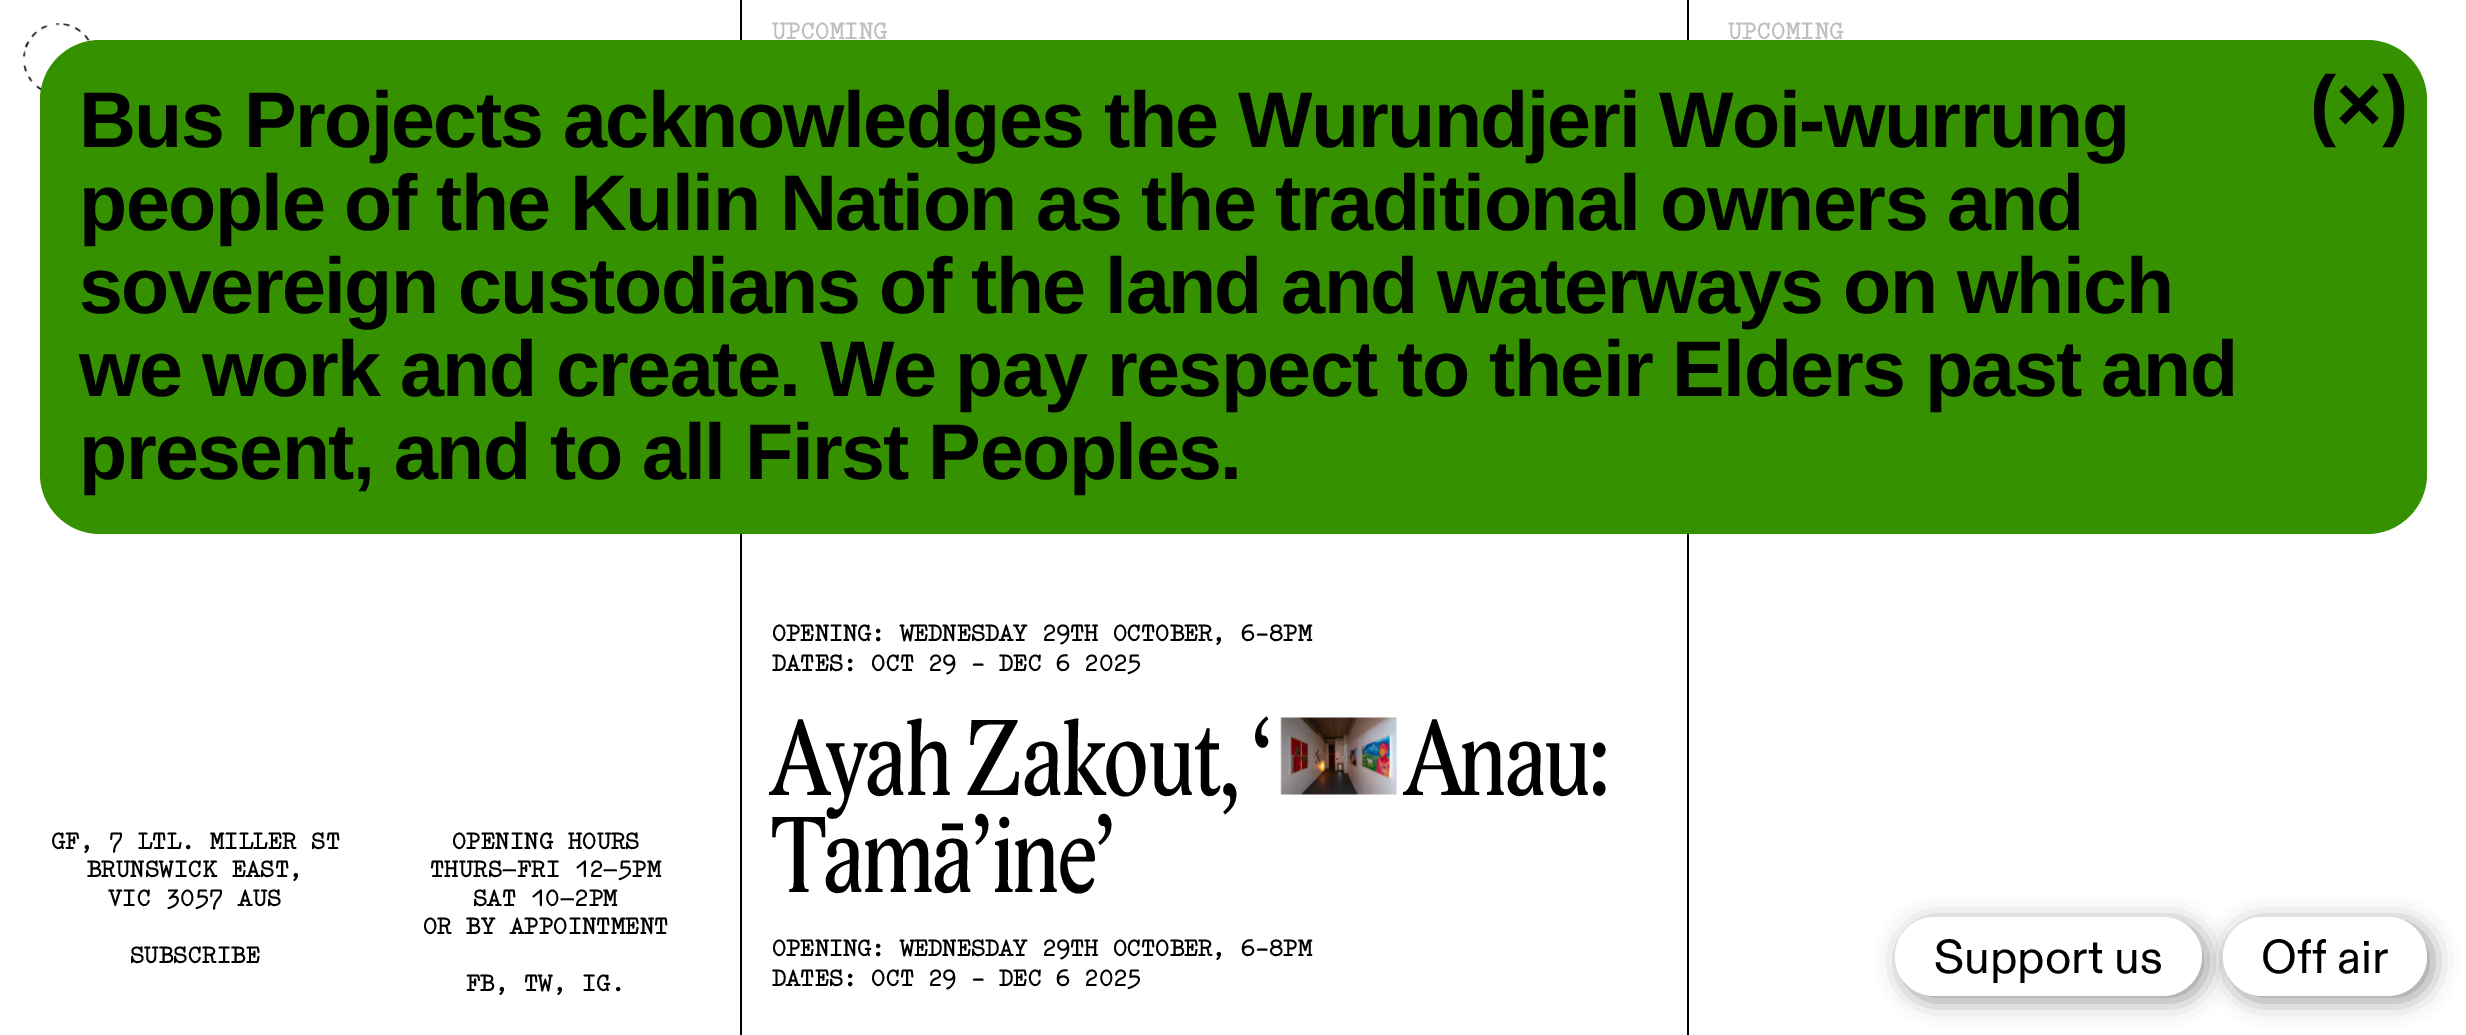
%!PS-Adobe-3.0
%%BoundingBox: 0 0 2466 1035
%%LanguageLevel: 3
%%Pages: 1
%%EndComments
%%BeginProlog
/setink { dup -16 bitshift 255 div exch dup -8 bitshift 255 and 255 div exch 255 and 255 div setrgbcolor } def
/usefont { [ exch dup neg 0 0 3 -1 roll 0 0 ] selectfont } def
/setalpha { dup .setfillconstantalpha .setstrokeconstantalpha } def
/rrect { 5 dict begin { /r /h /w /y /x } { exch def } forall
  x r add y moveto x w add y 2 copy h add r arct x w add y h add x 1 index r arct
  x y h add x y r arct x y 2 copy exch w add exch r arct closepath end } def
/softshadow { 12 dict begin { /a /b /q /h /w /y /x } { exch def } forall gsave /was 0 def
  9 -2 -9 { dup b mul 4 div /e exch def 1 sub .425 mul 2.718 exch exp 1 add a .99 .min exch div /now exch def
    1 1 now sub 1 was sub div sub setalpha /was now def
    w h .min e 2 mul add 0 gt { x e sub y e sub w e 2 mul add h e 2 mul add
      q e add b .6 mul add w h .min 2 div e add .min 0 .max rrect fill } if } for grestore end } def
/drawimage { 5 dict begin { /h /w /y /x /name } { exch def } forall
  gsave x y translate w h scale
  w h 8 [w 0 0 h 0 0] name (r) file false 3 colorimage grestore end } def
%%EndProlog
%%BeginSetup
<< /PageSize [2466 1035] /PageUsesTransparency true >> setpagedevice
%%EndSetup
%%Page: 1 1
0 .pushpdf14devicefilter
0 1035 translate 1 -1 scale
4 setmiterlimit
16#FFFFFF setink
0 0 2466 1035 rectfill
16#000000 setink
740 0 2 1035 rectfill
/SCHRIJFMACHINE-Bold 23.7 usefont
16#BFBFBF setink
772 39 moveto (UPCOMING) show
16#000000 setink
772 641 moveto -0.25 0 (OPENING: WEDNESDAY 29TH OCTOBER, 6-8PM) ashow
772 671 moveto -0.25 0 (DATES: OCT 29 - DEC 6 2025) ashow
/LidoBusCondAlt-Regular 110.5 usefont
1250 795 moveto -3.5 0 (‘) ashow
(img1.raw) 1280 717 117 78 drawimage
1406 795 moveto -3.5 0 (Anau:) ashow
772 892 moveto -3.5 0 (Tamā’ine’) ashow
772 795 moveto -2.25 0 (Ayah Zakout,) ashow
/SCHRIJFMACHINE-Bold 23.7 usefont
772 956 moveto -0.25 0 (OPENING: WEDNESDAY 29TH OCTOBER, 6-8PM) ashow
772 986 moveto -0.25 0 (DATES: OCT 29 - DEC 6 2025) ashow
1687 0 2 1035 rectfill
16#BFBFBF setink
1728 39 moveto (UPCOMING) show
(img2.raw) 23 23 68 68 drawimage
16#359100 setink
40 40 2387 494 60 rrect fill
/LiberationSans-Bold 78.95 usefont
16#000000 setink
79 147 moveto -1.58 0 (Bus Projects acknowledges the Wurundjeri Woi-wurrung) ashow
79 230 moveto -1.58 0 (people of the Kulin Nation as the traditional owners and) ashow
79 313 moveto -1.58 0 (sovereign custodians of the land and waterways on which) ashow
79 396 moveto -1.58 0 (we work and create. We pay respect to their Elders past and) ashow
79 479 moveto -1.58 0 (present, and to all First Peoples.) ashow
2310 131 moveto (\(×\)) show
/SCHRIJFMACHINE-Bold 23.7 usefont
[
    [(GF, 7 LTL. MILLER ST) 51 849]
    [(BRUNSWICK EAST,) 87 877]
    [(VIC 3057 AUS) 108 906]
    [(SUBSCRIBE) 130 963]
    [(OPENING HOURS) 452 849]
    [(THURS–FRI 12–5PM) 430 877]
    [(SAT 10–2PM) 473 906]
    [(OR BY APPOINTMENT) 423 934]
    [(FB, TW, IG.) 466 991]
] { aload pop moveto show } forall
1901 922 306 79 39.5 12 0.4 softshadow
16#FFFFFF setink
1895 917 307 79 39.5 rrect fill
/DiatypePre-Regular 47.5 usefont
16#000000 setink
1934 973 moveto (Support us) show
2228 922 205 79 39.5 12 0.4 softshadow
16#FFFFFF setink
2223 917 204 79 39.5 rrect fill
16#000000 setink
2261 973 moveto (Off air) show
.poppdf14devicefilter showpage
%%EOF
